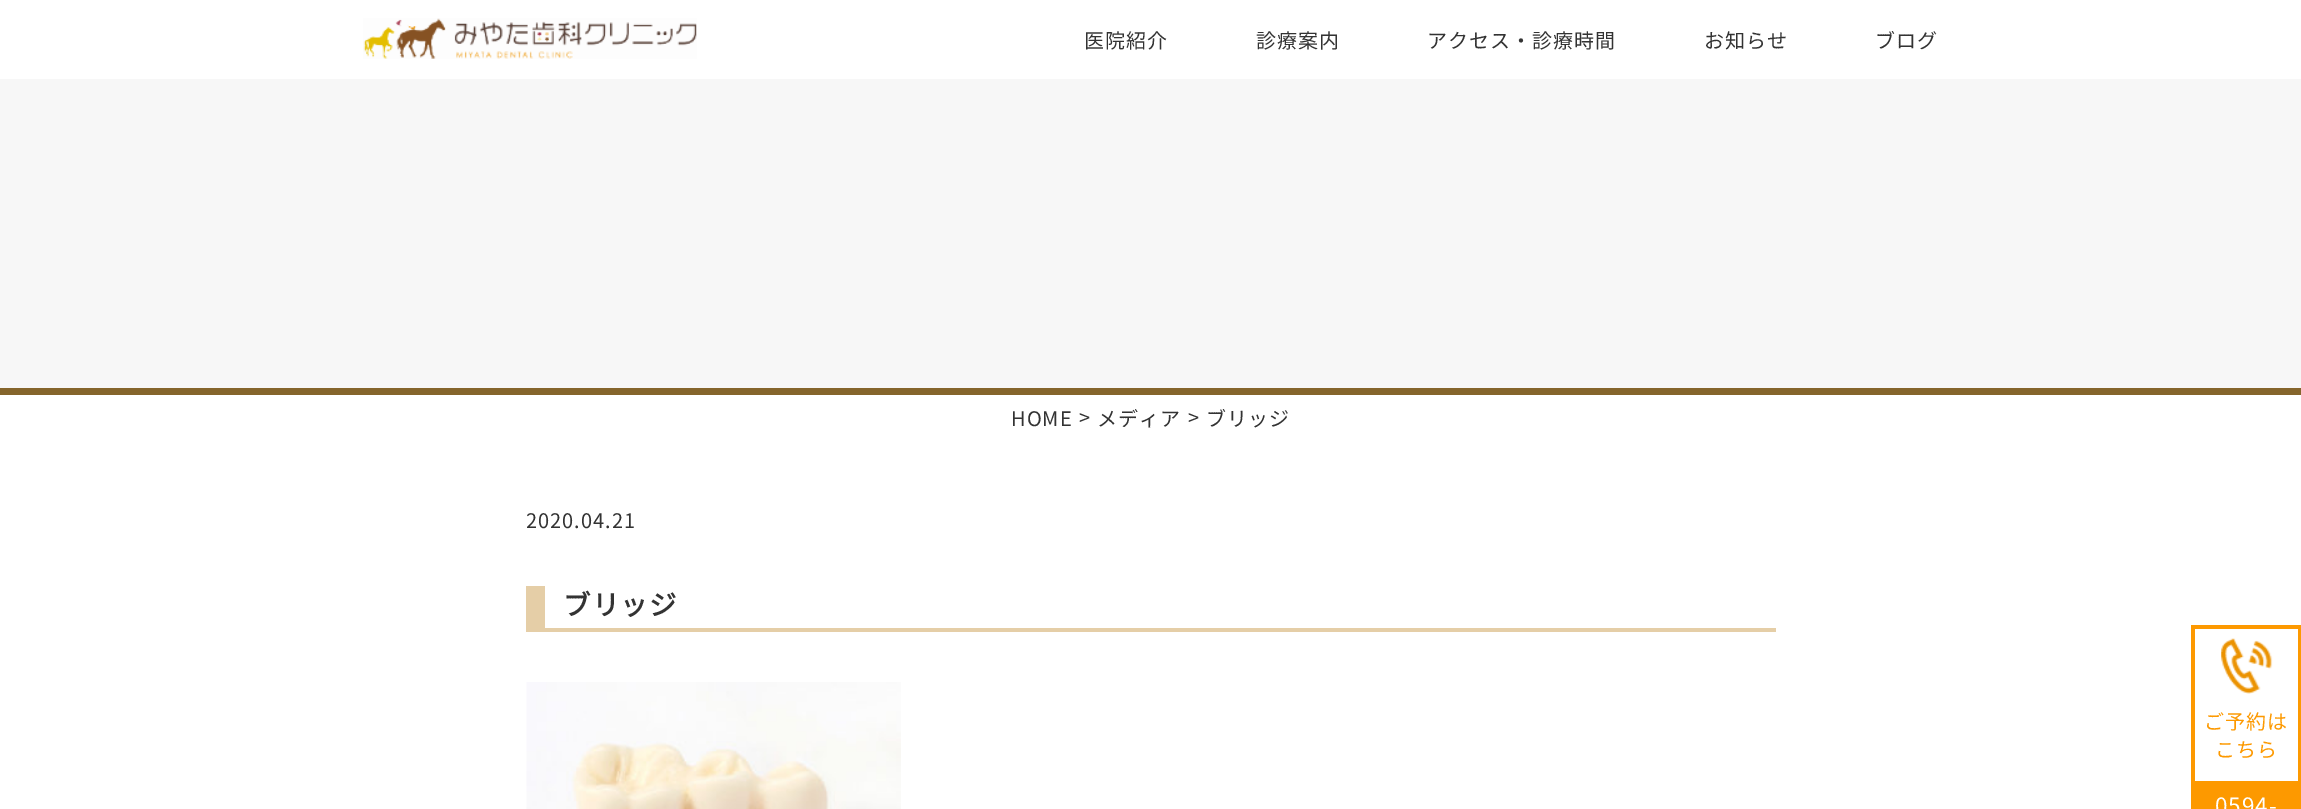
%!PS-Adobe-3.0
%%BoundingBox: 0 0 2301 809
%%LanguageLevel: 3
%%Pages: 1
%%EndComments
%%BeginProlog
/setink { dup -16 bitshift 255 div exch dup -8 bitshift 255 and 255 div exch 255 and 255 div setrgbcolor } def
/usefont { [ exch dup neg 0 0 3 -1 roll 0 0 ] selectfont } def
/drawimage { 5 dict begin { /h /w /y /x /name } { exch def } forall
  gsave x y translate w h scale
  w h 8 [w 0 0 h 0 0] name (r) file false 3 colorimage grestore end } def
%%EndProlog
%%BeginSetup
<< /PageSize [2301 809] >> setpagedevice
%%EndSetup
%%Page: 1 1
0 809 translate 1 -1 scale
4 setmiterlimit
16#FFFFFF setink
0 0 2301 809 rectfill
16#F7F7F7 setink
0 79 2301 309 rectfill
16#85652C setink
0 388 2301 7 rectfill
/NotoSansJP-Thin 20 usefont
16#333333 setink
1011 426 moveto 1 0 (HOME) ashow
1079 425 moveto 1 0 (>) ashow
1097 426 moveto 1 0 (メディア) ashow
1188 425 moveto 1 0 (>) ashow
1206 426 moveto 1 0 (ブリッジ) ashow
526 528 moveto 1 0 (2020.04.21) ashow
16#E5CEA7 setink
526 628 1250 4 rectfill
526 586 19 42 rectfill
/NotoSansJP-Bold 27.5 usefont
16#333333 setink
563 615 moveto 1 0 (ブリッジ) ashow
(img1.raw) 526 682 375 127 drawimage
(img2.raw) 363 18 334 41 drawimage
/NotoSansJP-Thin 20 usefont
1084 48 moveto 1 0 (医院紹介) ashow
1256 48 moveto 1 0 (診療案内) ashow
1427 48 moveto 1 0 (アクセス・診療時間) ashow
1704 48 moveto 1 0 (お知らせ) ashow
1875 48 moveto 1 0 (ブログ) ashow
[
    [2191 625 110 4 16#FD9900]
    [2298 625 3 156 16#FD9900]
    [2191 625 4 156 16#FD9900]
] { aload pop setink rectfill } forall
(img3.raw) 2221 638 52 56 drawimage
2204 729 moveto 1 0 (ご予約は) ashow
2215 757 moveto 1 0 (こちら) ashow
4 setlinewidth
2193 783 106 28 rectstroke
2195 785 102 24 rectfill
/NotoSansJP-Thin 22.5 usefont
16#FFFFFF setink
2215 814 moveto 1 0 (0594-) ashow
showpage
%%EOF
